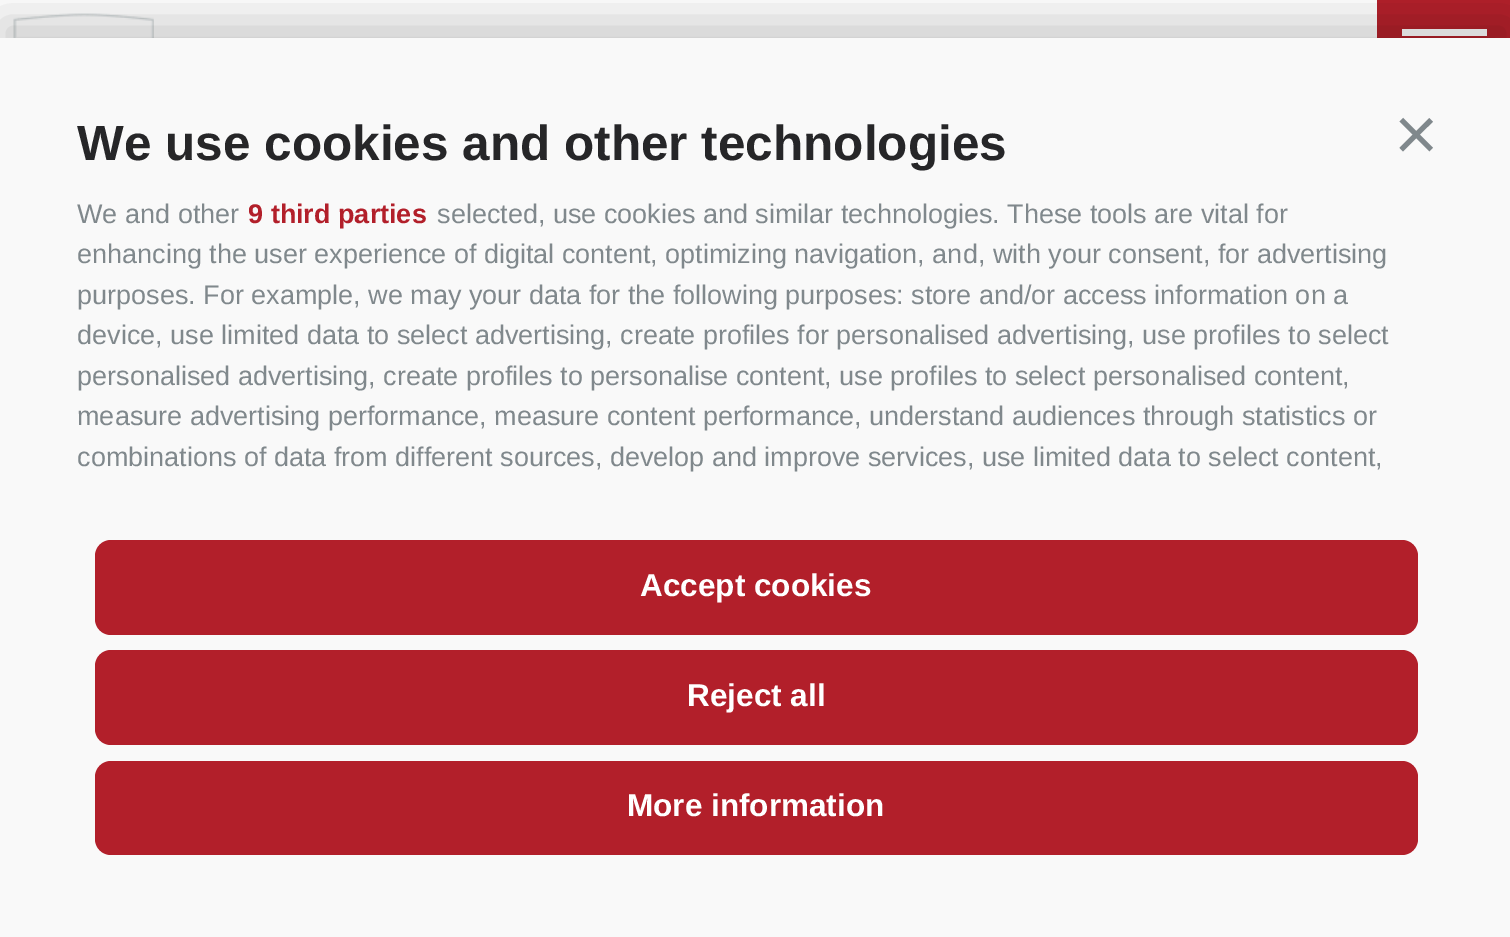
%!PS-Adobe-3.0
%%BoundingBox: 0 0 1510 937
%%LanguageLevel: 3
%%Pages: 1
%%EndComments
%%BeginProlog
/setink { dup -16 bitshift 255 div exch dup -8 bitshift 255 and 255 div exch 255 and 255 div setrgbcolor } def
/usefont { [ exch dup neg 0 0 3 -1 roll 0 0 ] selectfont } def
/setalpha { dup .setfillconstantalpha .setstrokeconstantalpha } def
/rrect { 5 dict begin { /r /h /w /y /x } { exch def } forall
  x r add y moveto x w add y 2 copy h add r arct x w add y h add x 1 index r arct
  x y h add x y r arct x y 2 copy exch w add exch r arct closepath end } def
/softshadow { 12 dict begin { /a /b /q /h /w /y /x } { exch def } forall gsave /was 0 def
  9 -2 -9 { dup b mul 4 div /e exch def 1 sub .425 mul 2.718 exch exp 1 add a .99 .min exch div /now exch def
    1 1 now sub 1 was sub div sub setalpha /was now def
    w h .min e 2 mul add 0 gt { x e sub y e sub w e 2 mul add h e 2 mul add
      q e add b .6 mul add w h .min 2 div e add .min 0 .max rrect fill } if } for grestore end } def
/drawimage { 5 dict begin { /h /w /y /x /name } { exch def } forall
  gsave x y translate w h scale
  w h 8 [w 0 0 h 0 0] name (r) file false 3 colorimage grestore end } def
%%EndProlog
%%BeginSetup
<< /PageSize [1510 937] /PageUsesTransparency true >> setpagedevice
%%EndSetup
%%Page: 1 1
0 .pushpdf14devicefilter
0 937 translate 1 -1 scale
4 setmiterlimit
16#FFFFFF setink
0 0 1510 937 rectfill
(img1.raw) 13 13 141 25 drawimage
16#B21F2A setink
1377 0 133 38 rectfill
16#FFFFFF setink
1402 29 85 7 rectfill
16#000000 setink
0 20 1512 900 0 22.5 0.2 softshadow
16#F9F9F9 setink
0 38 1510 899 rectfill
/LiberationSans-Bold 49.5 usefont
16#262628 setink
77 160 moveto (We use cookies and other technologies) show
/LiberationSans-Regular 76 usefont
16#80888C setink
1394 160 moveto (×) show
/LiberationSans-Regular 27 usefont
77 223 moveto (We and other) show
/LiberationSans-Bold 27 usefont
16#B21F2A setink
248 223 moveto (9 third parties) show
/LiberationSans-Regular 27 usefont
16#80888C setink
[
    [(selected, use cookies and similar technologies. These tools are vital for) 437 223]
    [(enhancing the user experience of digital content, optimizing navigation, and, with your consent, for advertising) 77 263]
    [(purposes. For example, we may your data for the following purposes: store and/or access information on a) 77 304]
    [(device, use limited data to select advertising, create profiles for personalised advertising, use profiles to select) 77 344]
    [(personalised advertising, create profiles to personalise content, use profiles to select personalised content,) 77 385]
    [(measure advertising performance, measure content performance, understand audiences through statistics or) 77 425]
    [(combinations of data from different sources, develop and improve services, use limited data to select content,) 77 466]
] { aload pop moveto show } forall
16#B21F2A setink
95 540 1323 95 16 rrect fill
/LiberationSans-Bold 31.5 usefont
16#FFFFFF setink
640 596 moveto (Accept cookies) show
16#B21F2A setink
95 650 1323 95 16 rrect fill
16#FFFFFF setink
687 706 moveto (Reject all) show
16#B21F2A setink
95 761 1323 94 16 rrect fill
16#FFFFFF setink
627 816 moveto (More information) show
.poppdf14devicefilter showpage
%%EOF
